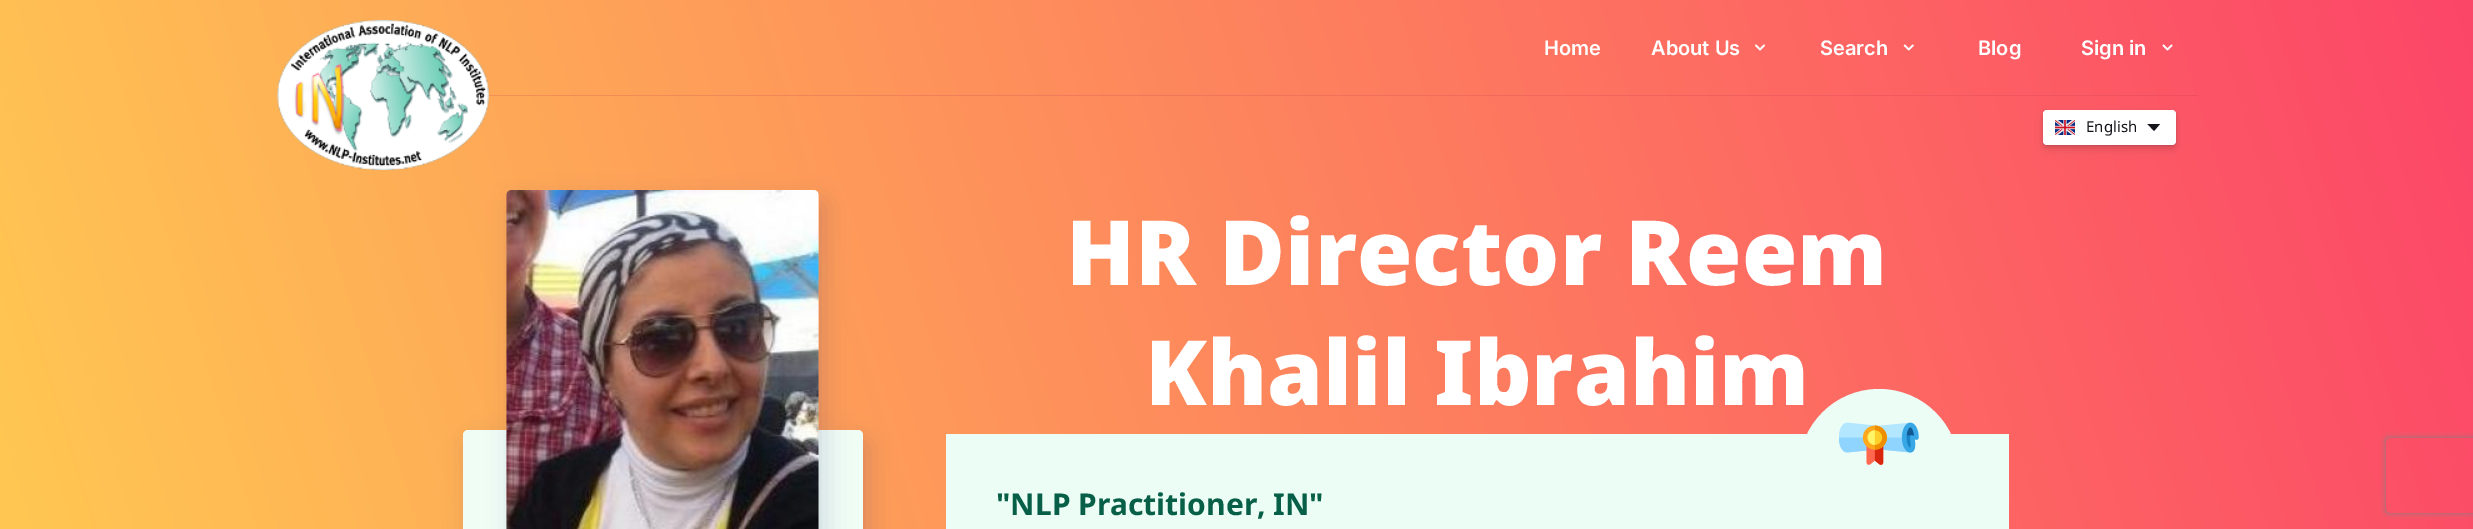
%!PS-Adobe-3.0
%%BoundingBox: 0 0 2473 529
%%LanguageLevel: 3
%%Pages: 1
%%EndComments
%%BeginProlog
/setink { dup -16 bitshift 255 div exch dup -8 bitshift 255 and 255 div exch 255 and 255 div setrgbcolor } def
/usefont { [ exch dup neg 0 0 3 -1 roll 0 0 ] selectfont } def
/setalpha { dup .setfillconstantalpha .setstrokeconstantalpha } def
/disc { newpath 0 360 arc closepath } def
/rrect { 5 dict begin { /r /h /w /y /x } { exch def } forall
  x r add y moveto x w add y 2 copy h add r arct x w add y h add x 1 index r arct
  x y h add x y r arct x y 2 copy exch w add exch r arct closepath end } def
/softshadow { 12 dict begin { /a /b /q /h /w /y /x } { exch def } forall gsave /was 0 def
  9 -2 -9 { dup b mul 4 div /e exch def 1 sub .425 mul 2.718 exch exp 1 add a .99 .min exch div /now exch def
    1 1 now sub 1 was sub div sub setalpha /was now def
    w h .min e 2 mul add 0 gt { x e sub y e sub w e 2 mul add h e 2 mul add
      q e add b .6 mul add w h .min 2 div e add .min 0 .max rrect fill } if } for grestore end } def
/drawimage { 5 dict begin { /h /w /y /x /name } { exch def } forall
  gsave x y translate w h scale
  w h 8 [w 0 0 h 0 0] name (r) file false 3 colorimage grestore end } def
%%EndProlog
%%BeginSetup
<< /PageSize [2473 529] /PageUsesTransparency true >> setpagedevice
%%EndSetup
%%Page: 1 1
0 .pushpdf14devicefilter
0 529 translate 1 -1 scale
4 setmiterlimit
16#FFFFFF setink
0 0 2473 529 rectfill
(img1.raw) 0 0 2473 529 drawimage
0.2 setalpha
16#BD3451 setink
487 95 1711 1 rectfill
1 setalpha
16#221C7E setink
469 441 400 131 5 12.5 0.15 softshadow
16#F0FDF4 setink
463 430 400 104 5 rrect fill
16#221C7E setink
513 201 312 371 5 12.5 0.15 softshadow
(img2.raw) 277 20 212 150 drawimage
/Inter-SemiBold 20 usefont
16#FFFFFF setink
1544 55 moveto (Home) show
1651 55 moveto (About Us) show
(img3.raw) 1755 44 10 7 drawimage
1820 55 moveto (Search) show
(img4.raw) 1903 44 11 7 drawimage
1978 55 moveto (Blog) show
2081 55 moveto (Sign in) show
(img5.raw) 2162 44 11 7 drawimage
16#000000 setink
2043 115 133 35 4 4 0.1 softshadow
2043 111 133 35 4 1 0.05 softshadow
16#14151A setink
2044 113 131 32 2.5 2 0.2 softshadow
16#FFFFFF setink
2043 110 133 35 4 rrect fill
0.1 setalpha
2046 111 moveto 2172 111 lineto 2175 111 2176 113 2176 115 curveto 2176 113 2175 111 2173 110 curveto 2046 110 lineto 2045 110 2044 111 2044 112 curveto closepath fill
1 setalpha
(img6.raw) 2055 120 20 15 drawimage
/NotoSans-Regular 15 usefont
16#14151A setink
2086 132 moveto (English) show
2147.5 124 moveto 2154 131 lineto 2160 124 lineto closepath fill
(img7.raw) 506 190 313 339 drawimage
/NotoSans-Black 90 usefont
16#FFFFFF setink
1066 285 moveto (HR Director Reem) show
1145 405 moveto (Khalil Ibrahim) show
16#ECFDF5 setink
946 434 1063 95 rectfill
/NotoSans-Bold 30 usefont
16#065F46 setink
996 515 moveto ("NLP Practitioner, IN") show
16#ECFDF5 setink
1879 469 80 disc fill
(img8.raw) 1839 422 80 43 drawimage
gsave
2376 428 moveto 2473 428 lineto 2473 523 lineto 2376 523 lineto closepath 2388.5 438 moveto 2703.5 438 lineto 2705 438 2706 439 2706 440.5 curveto 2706 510.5 lineto 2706 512 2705 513 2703.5 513 curveto 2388.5 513 lineto 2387 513 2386 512 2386 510.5 curveto 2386 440.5 lineto 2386 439 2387 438 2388.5 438 curveto closepath eoclip newpath
16#808080 setink
2386 438 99 75 2.5 3 1 softshadow
grestore
.poppdf14devicefilter showpage
%%EOF
